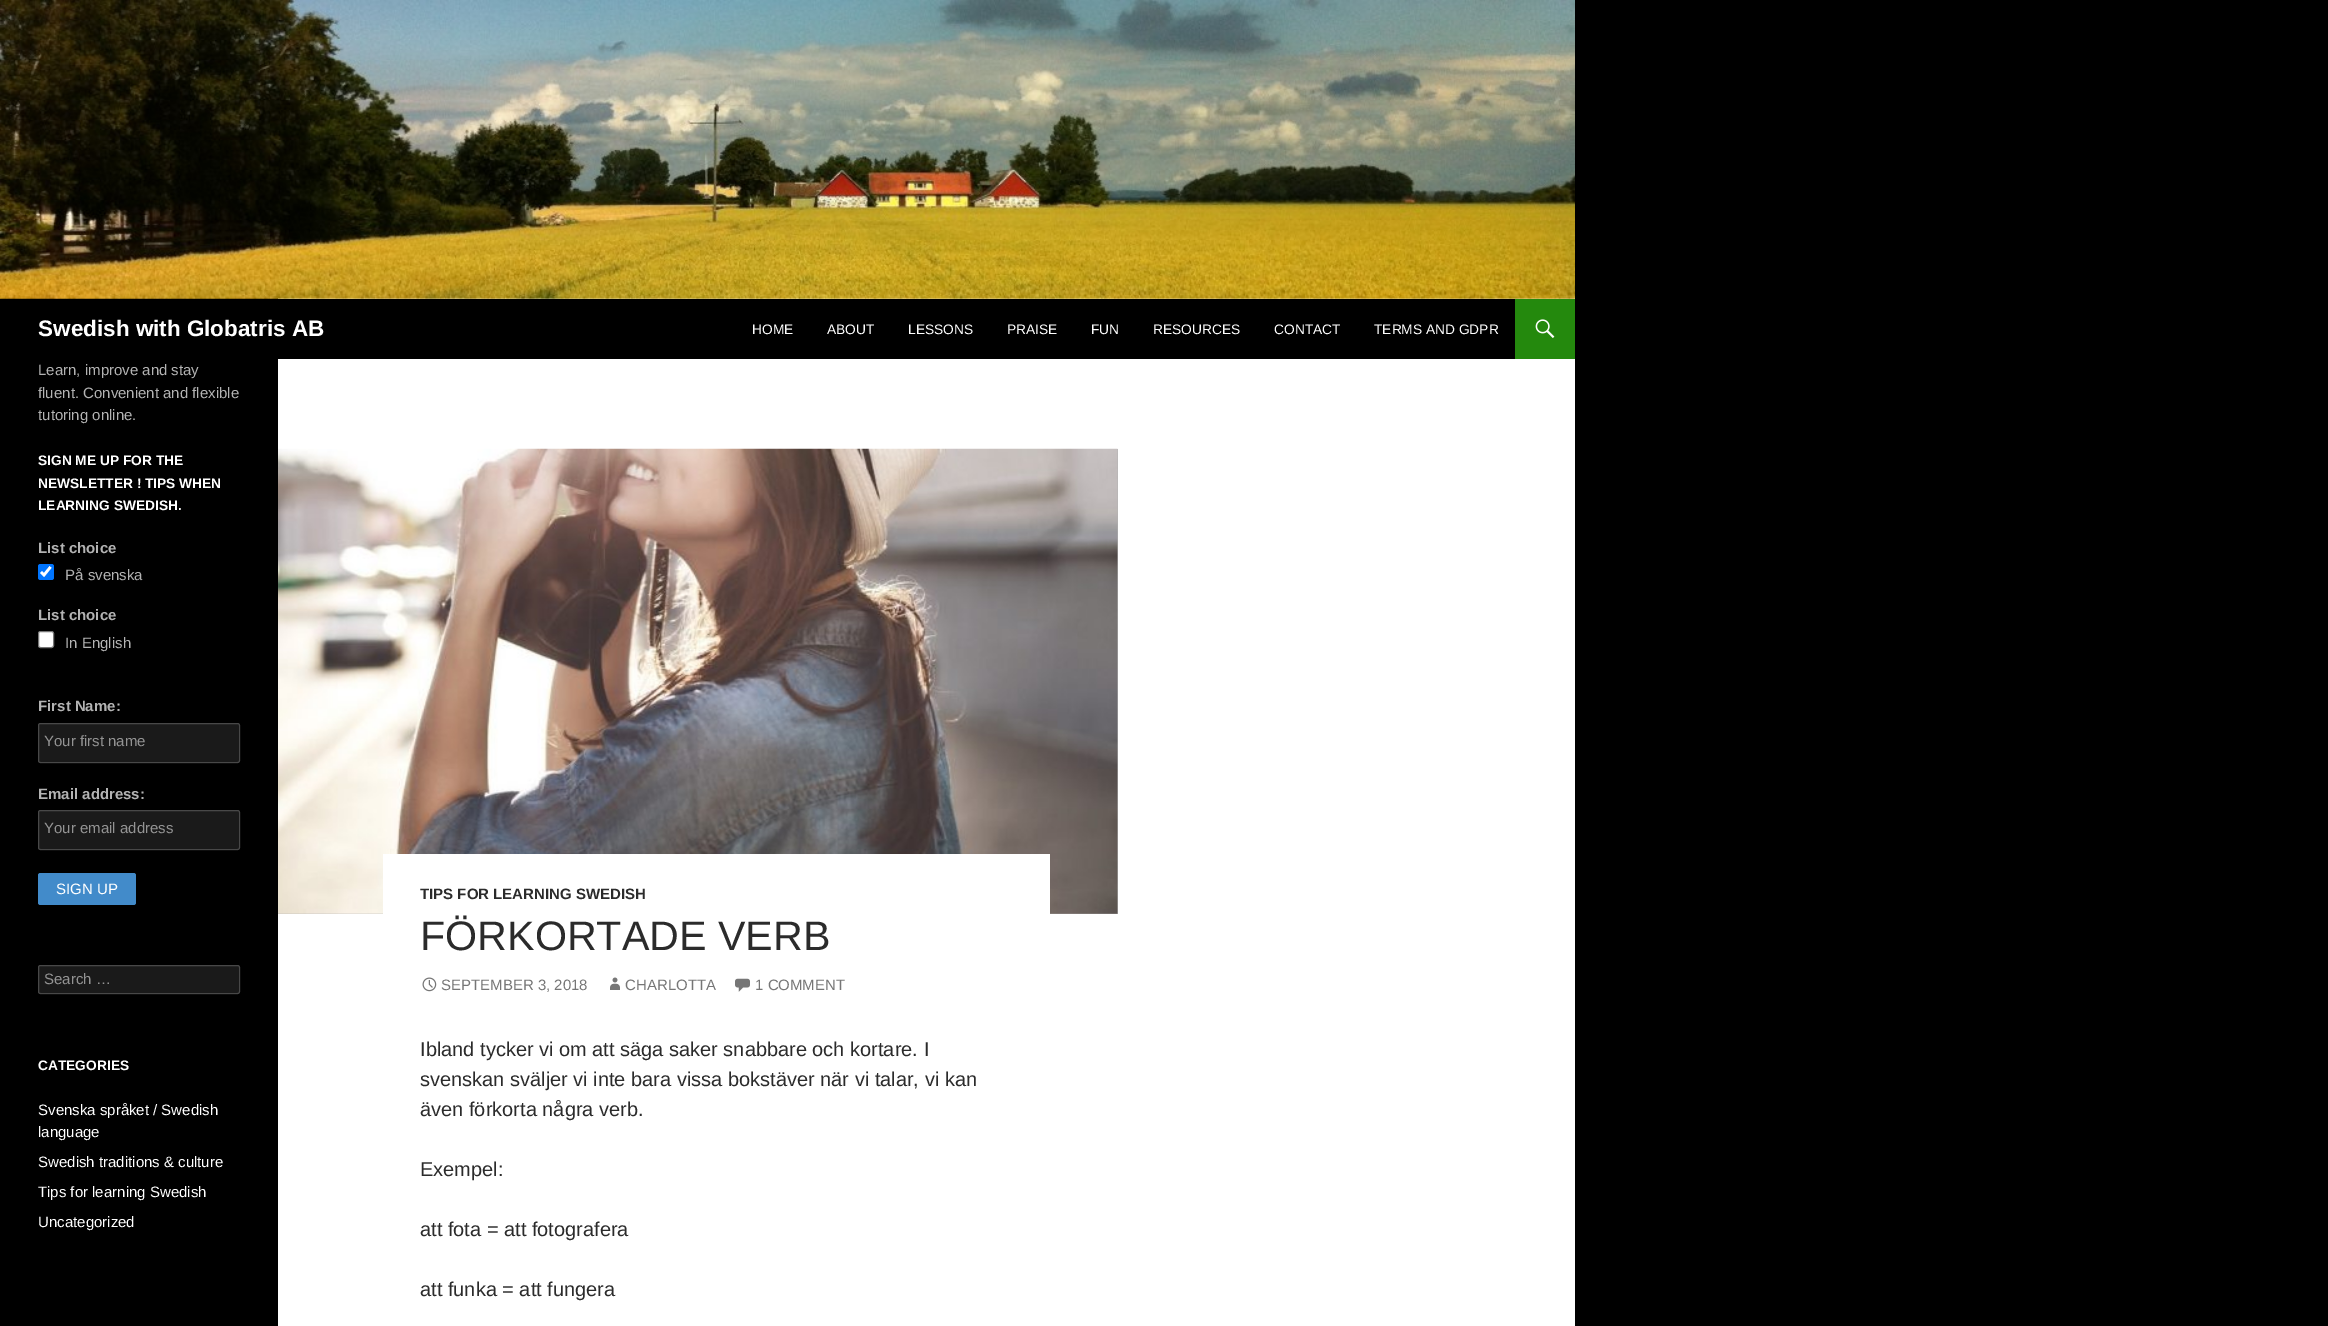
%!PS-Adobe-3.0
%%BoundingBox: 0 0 2328 1326
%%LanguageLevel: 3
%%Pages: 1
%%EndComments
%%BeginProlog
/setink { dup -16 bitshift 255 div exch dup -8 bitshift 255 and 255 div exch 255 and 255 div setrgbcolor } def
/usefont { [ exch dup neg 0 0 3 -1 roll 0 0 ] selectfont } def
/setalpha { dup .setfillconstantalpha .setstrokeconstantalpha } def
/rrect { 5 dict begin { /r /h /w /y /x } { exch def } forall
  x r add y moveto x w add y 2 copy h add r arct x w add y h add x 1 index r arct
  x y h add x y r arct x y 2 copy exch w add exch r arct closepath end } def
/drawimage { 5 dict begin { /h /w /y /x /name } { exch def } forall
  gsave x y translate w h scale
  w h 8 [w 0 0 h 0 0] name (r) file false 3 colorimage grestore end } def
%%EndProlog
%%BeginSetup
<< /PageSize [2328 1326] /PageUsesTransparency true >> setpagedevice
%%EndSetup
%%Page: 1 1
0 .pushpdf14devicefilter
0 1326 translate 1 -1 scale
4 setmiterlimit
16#000000 setink
0 0 2328 1326 rectfill
16#FFFFFF setink
278 298 1297 1028 rectfill
(img1.raw) 0 0 1575 299 drawimage
16#000000 setink
278 299 1237 60 rectfill
/LiberationSans-Bold 22.5 usefont
16#FFFFFF setink
38 336 moveto (Swedish with Globatris AB) show
/LiberationSans-Regular 13.75 usefont
[
    [(HOME) 752 334]
    [(ABOUT) 827 334]
    [(LESSONS) 908 334]
    [(PRAISE) 1007 334]
    [(FUN) 1091 334]
    [(RESOURCES) 1153 334]
    [(CONTACT) 1274 334]
    [(TERMS AND GDPR) 1374 334]
] { aload pop moveto show } forall
16#24890D setink
1515 299 60 60 rectfill
(img2.raw) 1535 319 20 19 drawimage
/LiberationSans-Regular 15 usefont
16#B3B3B3 setink
[
    [(Learn, improve and stay) 38 375]
    [(fluent. Convenient and flexible) 38 398]
    [(tutoring online.) 38 420]
] { aload pop moveto show } forall
/LiberationSans-Bold 13.75 usefont
16#FFFFFF setink
[
    [(SIGN ME UP FOR THE) 38 465]
    [(NEWSLETTER ! TIPS WHEN) 38 488]
    [(LEARNING SWEDISH.) 38 510]
] { aload pop moveto show } forall
/LiberationSans-Bold 15 usefont
16#B3B3B3 setink
38 553 moveto (List choice) show
16#0075FF setink
38 564 16 16 2.5 rrect fill
16#FFFFFF setink
2.6 setlinewidth
41 572 moveto 44 575 lineto 50.5 567 lineto stroke
/LiberationSans-Regular 15 usefont
16#B3B3B3 setink
65 580 moveto (På svenska) show
/LiberationSans-Bold 15 usefont
38 620 moveto (List choice) show
16#FFFFFF setink
38.5 631.5 15 16 2 rrect gsave fill grestore
16#767676 setink
1 setlinewidth
stroke
/LiberationSans-Regular 15 usefont
16#B3B3B3 setink
65 648 moveto (In English) show
/LiberationSans-Bold 15 usefont
38 711 moveto (First Name:) show
16#1A1A1A setink
38 723 202 40 2.5 rrect fill
0.2 setalpha
16#FFFFFF setink
38.5 723.5 201 39 2 rrect stroke
/LiberationSans-Regular 15 usefont
1 setalpha
16#939393 setink
44 746 moveto (Your first name) show
/LiberationSans-Bold 15 usefont
16#B3B3B3 setink
38 799 moveto (Email address:) show
16#1A1A1A setink
38 810 202 40 2.5 rrect fill
0.2 setalpha
16#FFFFFF setink
38.5 810.5 201 39 2 rrect stroke
/LiberationSans-Regular 15 usefont
1 setalpha
16#939393 setink
44 833 moveto (Your email address) show
16#428BCA setink
38 873 98 32 2.5 rrect fill
16#FFFFFF setink
56 894 moveto (SIGN UP) show
16#1A1A1A setink
38 965 202 29 2.5 rrect fill
0.2 setalpha
16#FFFFFF setink
38.5 965.5 201 28 2 rrect stroke
1 setalpha
16#939393 setink
44 984 moveto (Search …) show
/LiberationSans-Bold 13.75 usefont
16#FFFFFF setink
38 1070 moveto (CATEGORIES) show
/LiberationSans-Regular 15 usefont
[
    [(Svenska språket / Swedish) 38 1115]
    [(language) 38 1137]
    [(Swedish traditions & culture) 38 1167]
    [(Tips for learning Swedish) 38 1197]
    [(Uncategorized) 38 1227]
] { aload pop moveto show } forall
16#B2B2B2 setink
278 449 840 465 rectfill
(img3.raw) 278 448 840 466 drawimage
16#FFFFFF setink
383 854 667 60 rectfill
/LiberationSans-Bold 15 usefont
16#2B2B2B setink
420 899 moveto (TIPS FOR LEARNING SWEDISH) show
/LiberationSans-Regular 41.25 usefont
420 950 moveto (FÖRKORTADE VERB) show
(img4.raw) 422 977 15 15 drawimage
/LiberationSans-Regular 15 usefont
16#767676 setink
441 990 moveto (SEPTEMBER 3, 2018) show
(img5.raw) 610 977 10 13 drawimage
625 990 moveto (CHARLOTTA) show
(img6.raw) 735 978 15 14 drawimage
755 990 moveto (1 COMMENT) show
/LiberationSans-Regular 20 usefont
16#2B2B2B setink
[
    [(Ibland tycker vi om att säga saker snabbare och kortare. I) 420 1056]
    [(svenskan sväljer vi inte bara vissa bokstäver när vi talar, vi kan) 420 1086]
    [(även förkorta några verb.) 420 1116]
    [(Exempel:) 420 1176]
    [(att fota = att fotografera) 420 1236]
    [(att funka = att fungera) 420 1296]
] { aload pop moveto show } forall
.poppdf14devicefilter showpage
%%EOF
